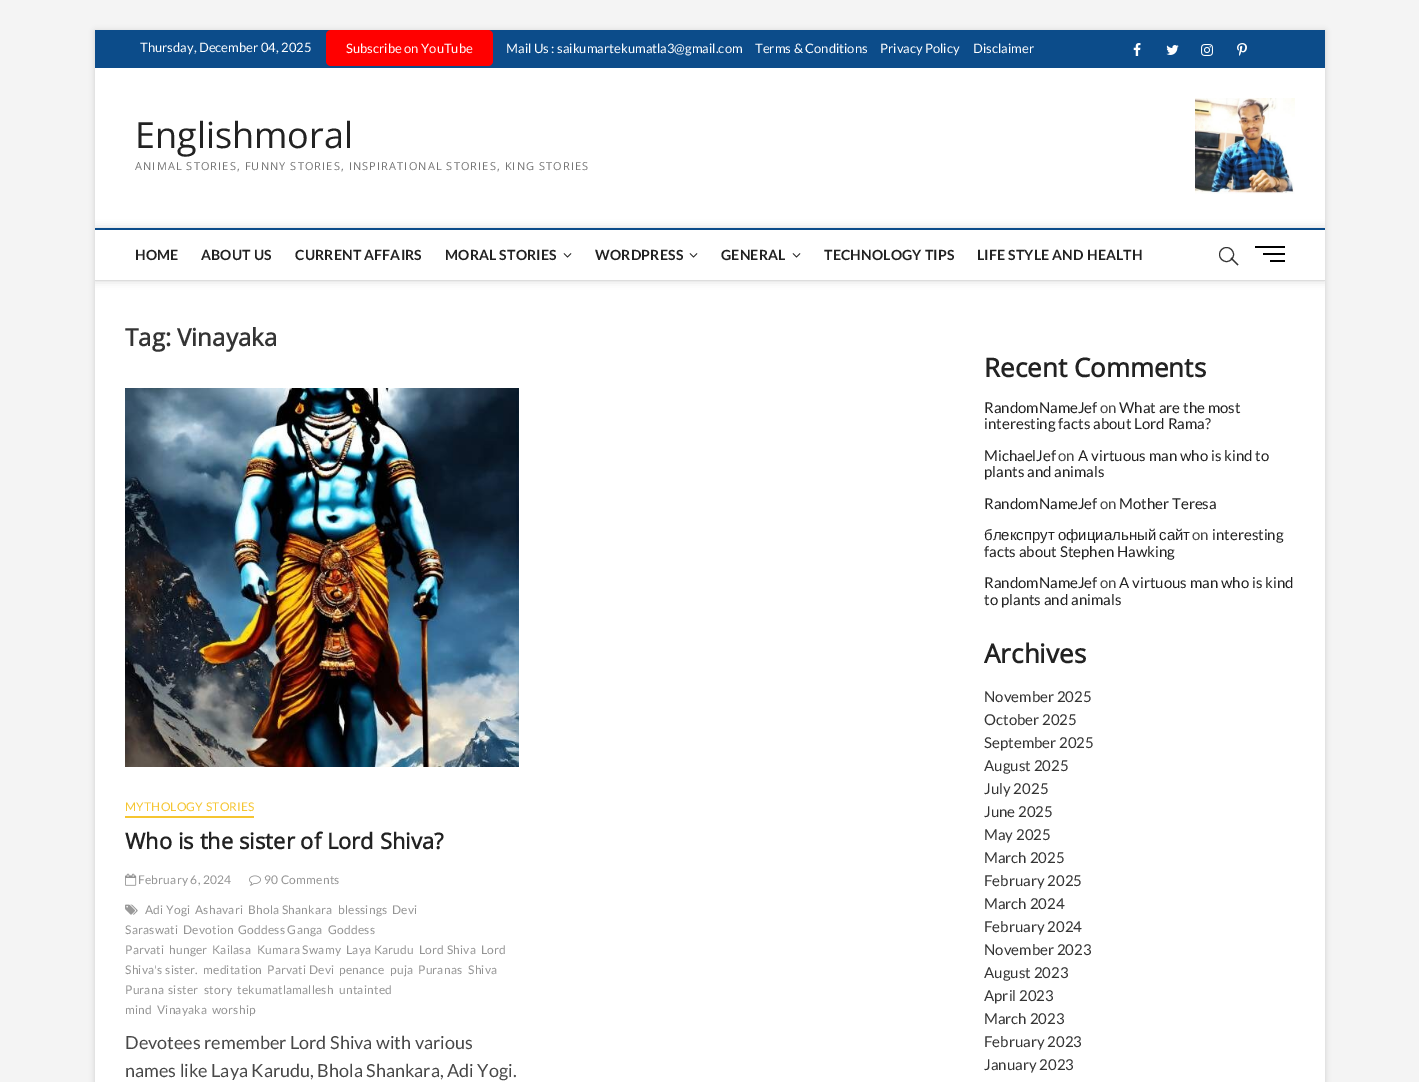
%!PS-Adobe-3.0
%%BoundingBox: 0 0 1419 1082
%%LanguageLevel: 3
%%Pages: 1
%%EndComments
%%BeginProlog
/setink { dup -16 bitshift 255 div exch dup -8 bitshift 255 and 255 div exch 255 and 255 div setrgbcolor } def
/usefont { [ exch dup neg 0 0 3 -1 roll 0 0 ] selectfont } def
/setalpha { dup .setfillconstantalpha .setstrokeconstantalpha } def
/disc { newpath 0 360 arc closepath } def
/rrect { 5 dict begin { /r /h /w /y /x } { exch def } forall
  x r add y moveto x w add y 2 copy h add r arct x w add y h add x 1 index r arct
  x y h add x y r arct x y 2 copy exch w add exch r arct closepath end } def
/softshadow { 12 dict begin { /a /b /q /h /w /y /x } { exch def } forall gsave /was 0 def
  9 -2 -9 { dup b mul 4 div /e exch def 1 sub .425 mul 2.718 exch exp 1 add a .99 .min exch div /now exch def
    1 1 now sub 1 was sub div sub setalpha /was now def
    w h .min e 2 mul add 0 gt { x e sub y e sub w e 2 mul add h e 2 mul add
      q e add b .6 mul add w h .min 2 div e add .min 0 .max rrect fill } if } for grestore end } def
/drawimage { 5 dict begin { /h /w /y /x /name } { exch def } forall
  gsave x y translate w h scale
  w h 8 [w 0 0 h 0 0] name (r) file false 3 colorimage grestore end } def
%%EndProlog
%%BeginSetup
<< /PageSize [1419 1082] /PageUsesTransparency true >> setpagedevice
%%EndSetup
%%Page: 1 1
0 .pushpdf14devicefilter
0 1082 translate 1 -1 scale
4 setmiterlimit
16#F4F4F4 setink
0 0 1419 1082 rectfill
16#000000 setink
95 31 1230 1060 0 3 0.15 softshadow
16#FFFFFF setink
95 68 1230 1014 rectfill
16#0C4C8A setink
95 30 1230 38 rectfill
/Lato-Regular 13 usefont
16#FFFFFF setink
140 52 moveto (Thursday, December 04, 2025) show
16#FF0000 setink
326 30 167 36 5 rrect fill
16#FFFFFF setink
[
    [(Subscribe on YouTube) 346 53]
    [(Mail Us : saikumartekumatla3@gmail.com) 506 53]
    [(Terms & Conditions) 755 53]
    [(Privacy Policy) 880 53]
    [(Disclaimer) 973 53]
] { aload pop moveto show } forall
(img1.raw) 1133 43 8 13 drawimage
(img2.raw) 1166 45 13 10 drawimage
(img3.raw) 1201 44 12 12 drawimage
(img4.raw) 1237 43 10 13 drawimage
/OpenSans-Regular 36 usefont
16#222222 setink
135 148 moveto (Englishmoral) show
/OpenSans-Regular 11 usefont
16#747474 setink
135 170 moveto 1.1 0 (ANIMAL STORIES, FUNNY STORIES, INSPIRATIONAL STORIES, KING STORIES) ashow
(img5.raw) 1195 98 100 96 drawimage
gsave
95 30 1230 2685 rectclip
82 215 moveto 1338 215 lineto 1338 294 lineto 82 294 lineto closepath 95 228 moveto 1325 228 lineto 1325 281 lineto 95 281 lineto closepath eoclip newpath
16#000000 setink
95 228 1230 53 0 4 0.15 softshadow
grestore
16#0C4C8A setink
95 228 1230 2 rectfill
16#DDDDDD setink
95 280 1230 1 rectfill
/Lato-Bold 14 usefont
16#222222 setink
135 260 moveto 0.2 0 (HOME) ashow
201 260 moveto 0.2 0 (ABOUT US) ashow
295 260 moveto 0.2 0 (CURRENT AFFAIRS) ashow
445 260 moveto 0.2 0 (MORAL STORIES) ashow
(img6.raw) 563 253 9 5 drawimage
595 260 moveto 0.2 0 (WORDPRESS) ashow
(img6.raw) 689 253 9 5 drawimage
721 260 moveto 0.2 0 (GENERAL) ashow
(img6.raw) 792 253 9 5 drawimage
824 260 moveto 0.2 0 (TECHNOLOGY TIPS) ashow
977 260 moveto 0.2 0 (LIFE STYLE AND HEALTH) ashow
16#333333 setink
1226.5 254.5 7 disc stroke
1230.5 258.5 moveto 1231.5 257.5 lineto 1238.5 264.5 lineto 1237.5 265.5 lineto closepath fill
[
    [1263 253 22 2 16#000000]
    [1255 246 30 2 16#000000]
    [1270 260 15 2 16#000000]
] { aload pop setink rectfill } forall
/OpenSans-Bold 24 usefont
16#343434 setink
125 346 moveto (Tag: Vinayaka) show
(img7.raw) 125 388 394 379 drawimage
/Lato-Regular 12 usefont
16#F5C531 setink
125 811 moveto 0.2 0 (MYTHOLOGY STORIES) ashow
125 816 129 2 rectfill
/OpenSans-Bold 22 usefont
16#222222 setink
125 849 moveto (Who is the sister of Lord Shiva?) show
(img8.raw) 125 873 12 13 drawimage
/Lato-Regular 12 usefont
16#949494 setink
138 884 moveto 0.2 0 (February 6, 2024) ashow
(img9.raw) 249 875 12 11 drawimage
264 884 moveto 0.2 0 (90 Comments) ashow
(img10.raw) 125 904 13 11 drawimage
145 914 moveto 0.2 0 (Adi Yogi) ashow
195 914 moveto 0.2 0 (Ashavari) ashow
248 914 moveto 0.2 0 (Bhola Shankara) ashow
338 914 moveto 0.2 0 (blessings) ashow
392 914 moveto 0.2 0 (Devi) ashow
125 934 moveto 0.2 0 (Saraswati) ashow
183 934 moveto 0.2 0 (Devotion) ashow
238 934 moveto 0.2 0 (Goddess Ganga) ashow
328 934 moveto 0.2 0 (Goddess) ashow
125 954 moveto 0.2 0 (Parvati) ashow
169 954 moveto 0.2 0 (hunger) ashow
212 954 moveto 0.2 0 (Kailasa) ashow
257 954 moveto 0.2 0 (Kumara Swamy) ashow
346 954 moveto 0.2 0 (Laya Karudu) ashow
419 954 moveto 0.2 0 (Lord Shiva) ashow
481 954 moveto 0.2 0 (Lord) ashow
125 974 moveto 0.2 0 (Shiva's sister.) ashow
203 974 moveto 0.2 0 (meditation) ashow
267 974 moveto 0.2 0 (Parvati Devi) ashow
339 974 moveto 0.2 0 (penance) ashow
390 974 moveto 0.2 0 (puja) ashow
418 974 moveto 0.2 0 (Puranas) ashow
468 974 moveto 0.2 0 (Shiva) ashow
125 994 moveto 0.2 0 (Purana) ashow
168 994 moveto 0.2 0 (sister) ashow
204 994 moveto 0.2 0 (story) ashow
237 994 moveto 0.2 0 (tekumatlamallesh) ashow
339 994 moveto 0.2 0 (untainted) ashow
125 1014 moveto 0.2 0 (mind) ashow
157 1014 moveto 0.2 0 (Vinayaka) ashow
212 1014 moveto 0.2 0 (worship) ashow
/Lato-Regular 18 usefont
16#484848 setink
125 1049 moveto (Devotees remember Lord Shiva with various) show
125 1077 moveto (names like Laya Karudu, Bhola Shankara, Adi Yogi.) show
/OpenSans-Bold 26 usefont
16#222222 setink
984 377 moveto (Recent Comments) show
/Lato-Regular 15 usefont
984 413 moveto (RandomNameJef) show
16#484848 setink
1100 413 moveto (on) show
16#222222 setink
[
    [(What are the most) 1119 413]
    [(interesting facts about Lord Rama?) 984 429]
    [(MichaelJef) 984 461]
] { aload pop moveto show } forall
16#484848 setink
1058 461 moveto (on) show
16#222222 setink
[
    [(A virtuous man who is kind to) 1078 461]
    [(plants and animals) 984 477]
    [(RandomNameJef) 984 509]
] { aload pop moveto show } forall
16#484848 setink
1100 509 moveto (on) show
16#222222 setink
1119 509 moveto (Mother Teresa) show
/LiberationSans-Regular 15 usefont
984 540 moveto -1 0 32 (блекспрут официальный сайт) widthshow
/Lato-Regular 15 usefont
16#484848 setink
1192 540 moveto (on) show
16#222222 setink
[
    [(interesting) 1212 540]
    [(facts about Stephen Hawking) 984 557]
    [(RandomNameJef) 984 588]
] { aload pop moveto show } forall
16#484848 setink
1100 588 moveto (on) show
16#222222 setink
1119 588 moveto (A virtuous man who is kind) show
984 605 moveto (to plants and animals) show
/OpenSans-Bold 26 usefont
984 663 moveto (Archives) show
/Lato-Regular 15 usefont
16#343434 setink
[
    [(November 2025) 984 702]
    [(October 2025) 984 725]
    [(September 2025) 984 748]
    [(August 2025) 984 771]
    [(July 2025) 984 794]
    [(June 2025) 984 817]
    [(May 2025) 984 840]
    [(March 2025) 984 863]
    [(February 2025) 984 886]
    [(March 2024) 984 909]
    [(February 2024) 984 932]
    [(November 2023) 984 955]
    [(August 2023) 984 978]
    [(April 2023) 984 1001]
    [(March 2023) 984 1024]
    [(February 2023) 984 1047]
    [(January 2023) 984 1070]
] { aload pop moveto show } forall
.poppdf14devicefilter showpage
%%EOF
